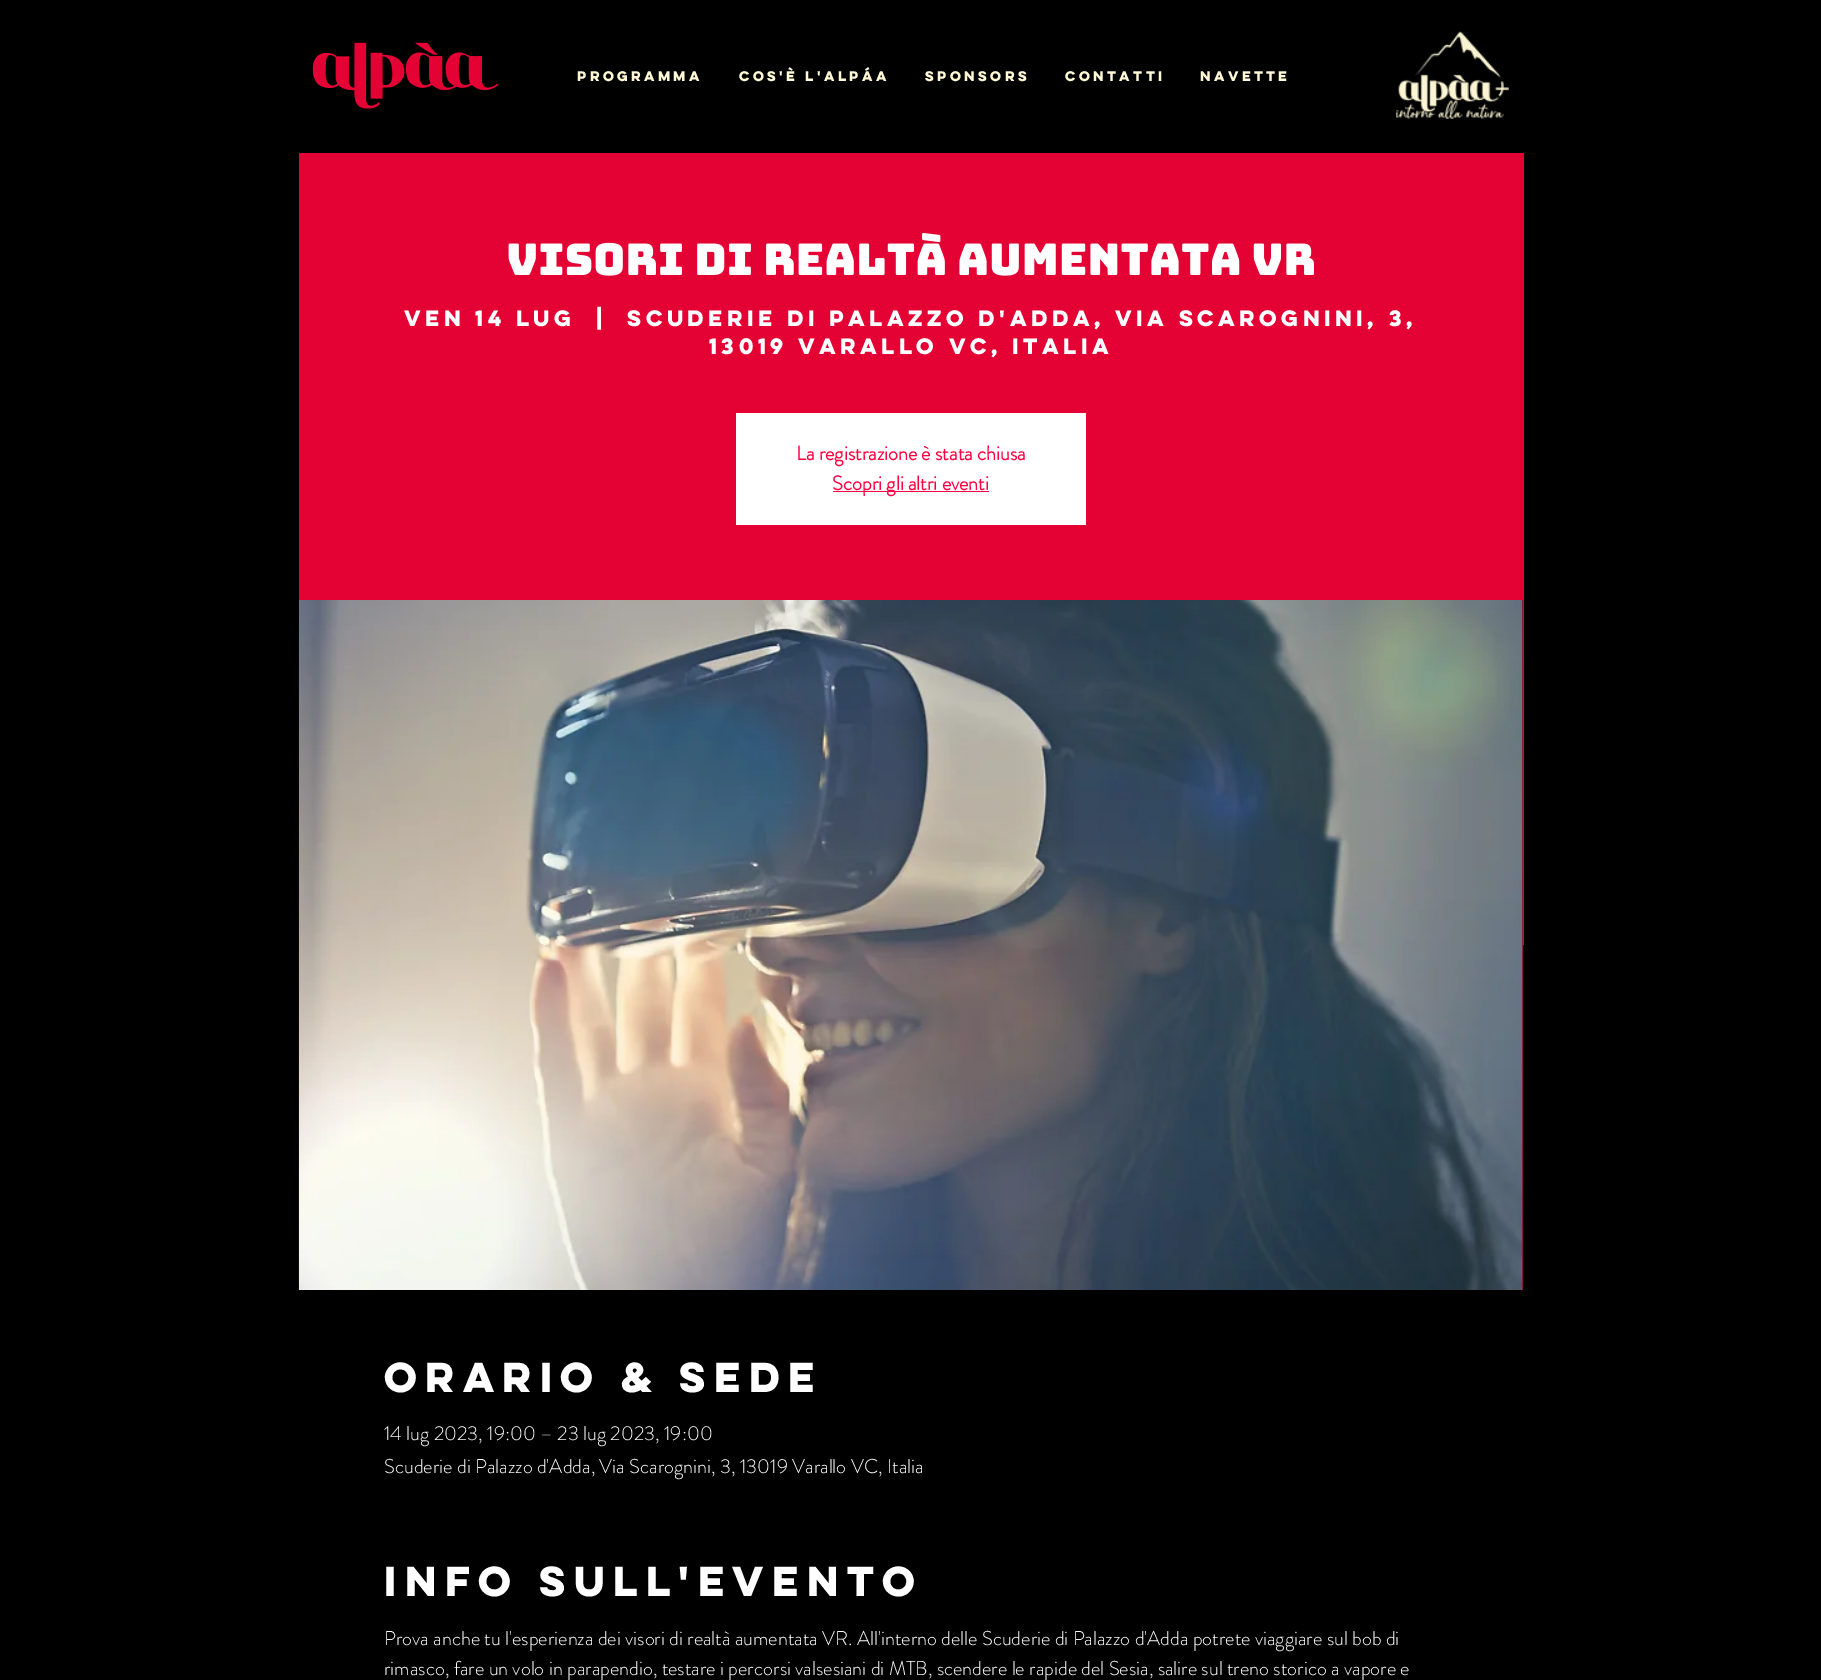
%!PS-Adobe-3.0
%%BoundingBox: 0 0 1821 1680
%%LanguageLevel: 3
%%Pages: 1
%%EndComments
%%BeginProlog
/setink { dup -16 bitshift 255 div exch dup -8 bitshift 255 and 255 div exch 255 and 255 div setrgbcolor } def
/usefont { [ exch dup neg 0 0 3 -1 roll 0 0 ] selectfont } def
/drawimage { 5 dict begin { /h /w /y /x /name } { exch def } forall
  gsave x y translate w h scale
  w h 8 [w 0 0 h 0 0] name (r) file false 3 colorimage grestore end } def
%%EndProlog
%%BeginSetup
<< /PageSize [1821 1680] >> setpagedevice
%%EndSetup
%%Page: 1 1
0 1680 translate 1 -1 scale
4 setmiterlimit
16#000000 setink
0 0 1821 1680 rectfill
(img1.raw) 312 42 187 67 drawimage
/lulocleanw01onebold-Bold 12.5 usefont
16#FFF8D5 setink
577 81 moveto 0.6 0 (PROGRAMMA) ashow
739 81 moveto 0.6 0 (COS'È L'ALPÁA) ashow
925 81 moveto 0.6 0 (SPONSORS) ashow
1065 81 moveto 0.6 0 (CONTATTI) ashow
1200 81 moveto 0.6 0 (NAVETTE) ashow
(img2.raw) 1396 31 113 88 drawimage
16#E40234 setink
299 153 1225 792 rectfill
(img3.raw) 508 233 806 43 drawimage
/lulocleanw01onebold-Bold 20 usefont
16#FFFFFF setink
[
    [(ven 14 lug) 404 326]
    [(|) 596 326]
    [(Scuderie di Palazzo d'Adda, Via Scarognini, 3,) 627 326]
    [(13019 Varallo VC, Italia) 709 354]
] { aload pop moveto show } forall
736 413 350 112 rectfill
/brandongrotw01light-Bold 20 usefont
16#FF0040 setink
796 460 moveto (La registrazione è stata chiusa) show
833 491 156 1 rectfill
832 490 moveto (Scopri gli altri eventi) show
16#980123 setink
1522 600 1 690 rectfill
(img4.raw) 298 600 1225 690 drawimage
/lulocleanw01onebold-Bold 37.5 usefont
16#FFFFFF setink
384 1392 moveto (Orario & Sede) show
/brandongrotw01light-Light 20 usefont
384 1440 moveto (14 lug 2023, 19:00 – 23 lug 2023, 19:00) show
384 1473 moveto (Scuderie di Palazzo d'Adda, Via Scarognini, 3, 13019 Varallo VC, Italia) show
/lulocleanw01onebold-Bold 37.5 usefont
384 1596 moveto (Info sull'evento) show
/brandongrotw01light-Light 20 usefont
384 1645 moveto (Prova anche tu l'esperienza dei visori di realtà aumentata VR. All'interno delle Scuderie di Palazzo d'Adda potrete viaggiare sul bob di) show
384 1675 moveto (rimasco, fare un volo in parapendio, testare i percorsi valsesiani di MTB, scendere le rapide del Sesia, salire sul treno storico a vapore e) show
showpage
%%EOF
